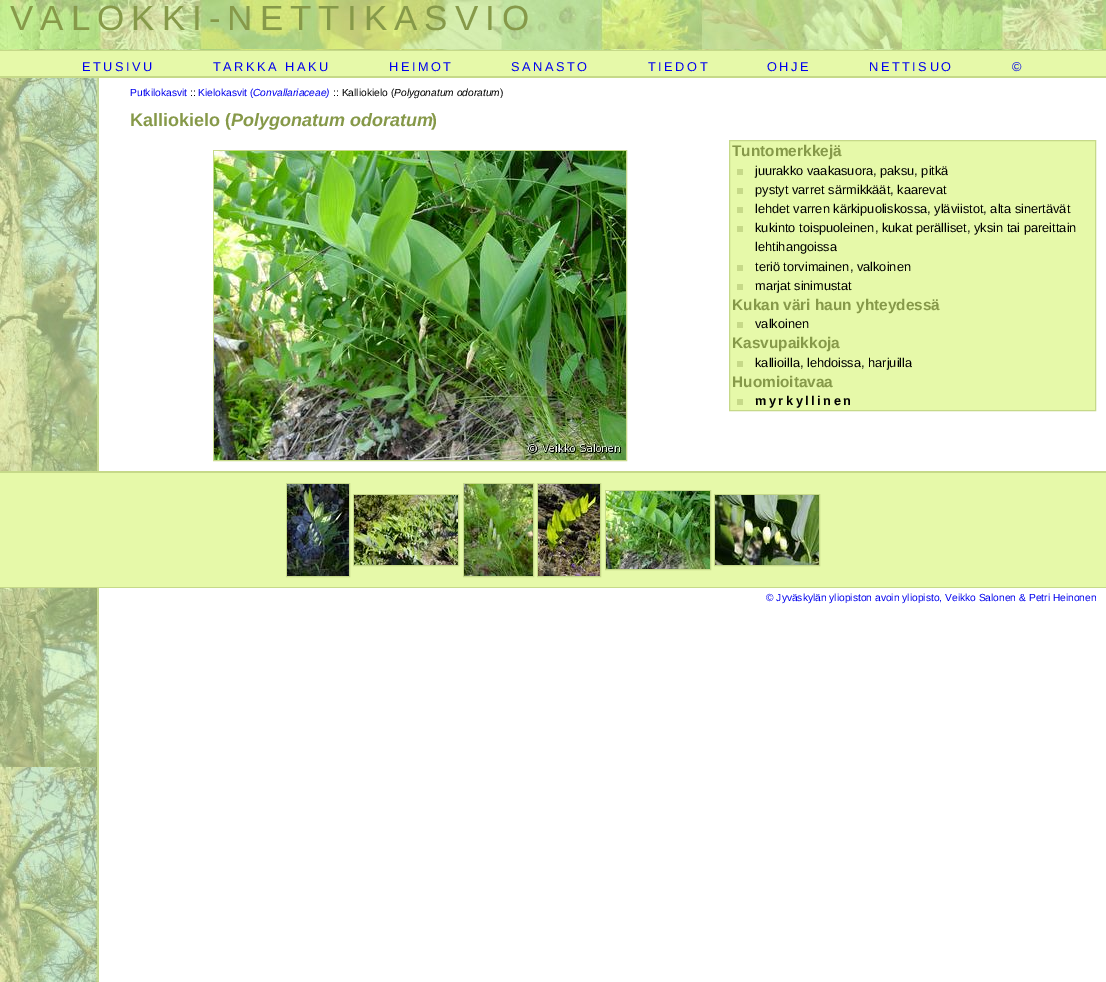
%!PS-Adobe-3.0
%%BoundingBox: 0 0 1106 982
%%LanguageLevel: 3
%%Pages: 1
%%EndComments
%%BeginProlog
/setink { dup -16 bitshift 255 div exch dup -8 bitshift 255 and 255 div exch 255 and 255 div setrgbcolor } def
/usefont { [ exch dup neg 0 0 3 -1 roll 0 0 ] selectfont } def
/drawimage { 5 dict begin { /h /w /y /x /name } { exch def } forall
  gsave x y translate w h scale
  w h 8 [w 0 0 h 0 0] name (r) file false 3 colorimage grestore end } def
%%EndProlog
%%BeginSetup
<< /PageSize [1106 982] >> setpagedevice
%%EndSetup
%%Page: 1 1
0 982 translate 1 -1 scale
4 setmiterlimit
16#FFFFFF setink
0 0 1106 982 rectfill
(img1.raw) 0 78 99 904 drawimage
(img2.raw) 0 0 1106 50 drawimage
16#C6D989 setink
0 50 1106 1 rectfill
/LiberationSans-Regular 35 usefont
16#869949 setink
10 30 moveto 7 0 (VALOKKI-NETTIKASVIO) ashow
16#E6F9A9 setink
0 51 1106 25 rectfill
16#C6D989 setink
0 76 1106 2 rectfill
/LiberationSans-Regular 12.8 usefont
16#0000EE setink
82 71 moveto 2.5 0 (ETUSIVU) ashow
213 71 moveto 2.5 0 (TARKKA HAKU) ashow
389 71 moveto 2.5 0 (HEIMOT) ashow
511 71 moveto 2.5 0 (SANASTO) ashow
648 71 moveto 2.5 0 (TIEDOT) ashow
767 71 moveto 2.5 0 (OHJE) ashow
869 71 moveto 2.5 0 (NETTISUO) ashow
1012 71 moveto 2.5 0 (©) ashow
/LiberationSans-Regular 10.25 usefont
130 96 moveto (Putkilokasvit) show
16#000000 setink
190 96 moveto (::) show
16#0000EE setink
198 96 moveto (Kielokasvit \() show
/LiberationSans-Italic 10.25 usefont
253 96 moveto (Convallariaceae\)) show
/LiberationSans-Regular 10.25 usefont
16#000000 setink
333 96 moveto (:: Kalliokielo \() show
/LiberationSans-Italic 10.25 usefont
394 96 moveto (Polygonatum odoratum) show
/LiberationSans-Regular 10.25 usefont
500 96 moveto (\)) show
/LiberationSans-Bold 18 usefont
16#869949 setink
130 126 moveto (Kalliokielo \() show
/LiberationSans-BoldItalic 18 usefont
231 126 moveto (Polygonatum odoratum) show
/LiberationSans-Bold 18 usefont
431 126 moveto (\)) show
16#C6D989 setink
213.5 150.5 413 310 rectstroke
(img3.raw) 214 151 412 309 drawimage
16#E6F9A9 setink
729.5 140.5 moveto 1095.5 140.5 lineto 1095.5 410.5 lineto 729.5 410.5 lineto closepath gsave fill grestore
16#C6D989 setink
stroke
/LiberationSans-Bold 15.4 usefont
16#869949 setink
732 156 moveto (Tuntomerkkejä) show
16#C6D988 setink
737 169 6 6 rectfill
/LiberationSans-Regular 12.8 usefont
16#000000 setink
755 175 moveto (juurakko vaakasuora, paksu, pitkä) show
16#C6D988 setink
737 188 6 6 rectfill
16#000000 setink
755 194 moveto (pystyt varret särmikkäät, kaarevat) show
16#C6D988 setink
737 207 6 6 rectfill
16#000000 setink
755 213 moveto (lehdet varren kärkipuoliskossa, yläviistot, alta sinertävät) show
16#C6D988 setink
737 226 6 6 rectfill
16#000000 setink
755 232 moveto (kukinto toispuoleinen, kukat perälliset, yksin tai pareittain) show
755 251 moveto (lehtihangoissa) show
16#C6D988 setink
737 265 6 6 rectfill
16#000000 setink
755 271 moveto (teriö torvimainen, valkoinen) show
16#C6D988 setink
737 284 6 6 rectfill
16#000000 setink
755 290 moveto (marjat sinimustat) show
/LiberationSans-Bold 15.4 usefont
16#869949 setink
732 310 moveto (Kukan väri haun yhteydessä) show
16#C6D988 setink
737 322 6 6 rectfill
/LiberationSans-Regular 12.8 usefont
16#000000 setink
755 328 moveto (valkoinen) show
/LiberationSans-Bold 15.4 usefont
16#869949 setink
732 348 moveto (Kasvupaikkoja) show
16#C6D988 setink
737 361 6 6 rectfill
/LiberationSans-Regular 12.8 usefont
16#000000 setink
755 367 moveto (kallioilla, lehdoissa, harjuilla) show
/LiberationSans-Bold 15.4 usefont
16#869949 setink
732 387 moveto (Huomioitavaa) show
16#C6D988 setink
737 399 6 6 rectfill
/LiberationSans-Bold 12.8 usefont
16#000000 setink
755 405 moveto 2.5 0 (myrkyllinen) ashow
[
    [0 473 1106 114 16#E6F9A9]
    [0 471 1106 2 16#C6D989]
    [0 587 1106 1 16#C6D989]
] { aload pop setink rectfill } forall
286.5 483.5 63 93 rectstroke
463.5 483.5 70 93 rectstroke
537.5 483.5 63 93 rectstroke
(img4.raw) 287 484 62 92 drawimage
(img5.raw) 464 484 69 92 drawimage
(img6.raw) 538 484 62 92 drawimage
605.5 490.5 105 79 rectstroke
353.5 494.5 105 71 rectstroke
(img7.raw) 606 491 104 78 drawimage
714.5 494.5 105 71 rectstroke
(img8.raw) 354 495 104 70 drawimage
(img9.raw) 715 495 104 70 drawimage
/LiberationSans-Regular 10.25 usefont
16#0000EE setink
766 601 moveto (© Jyväskylän yliopiston avoin yliopisto, Veikko Salonen & Petri Heinonen) show
showpage
%%EOF
